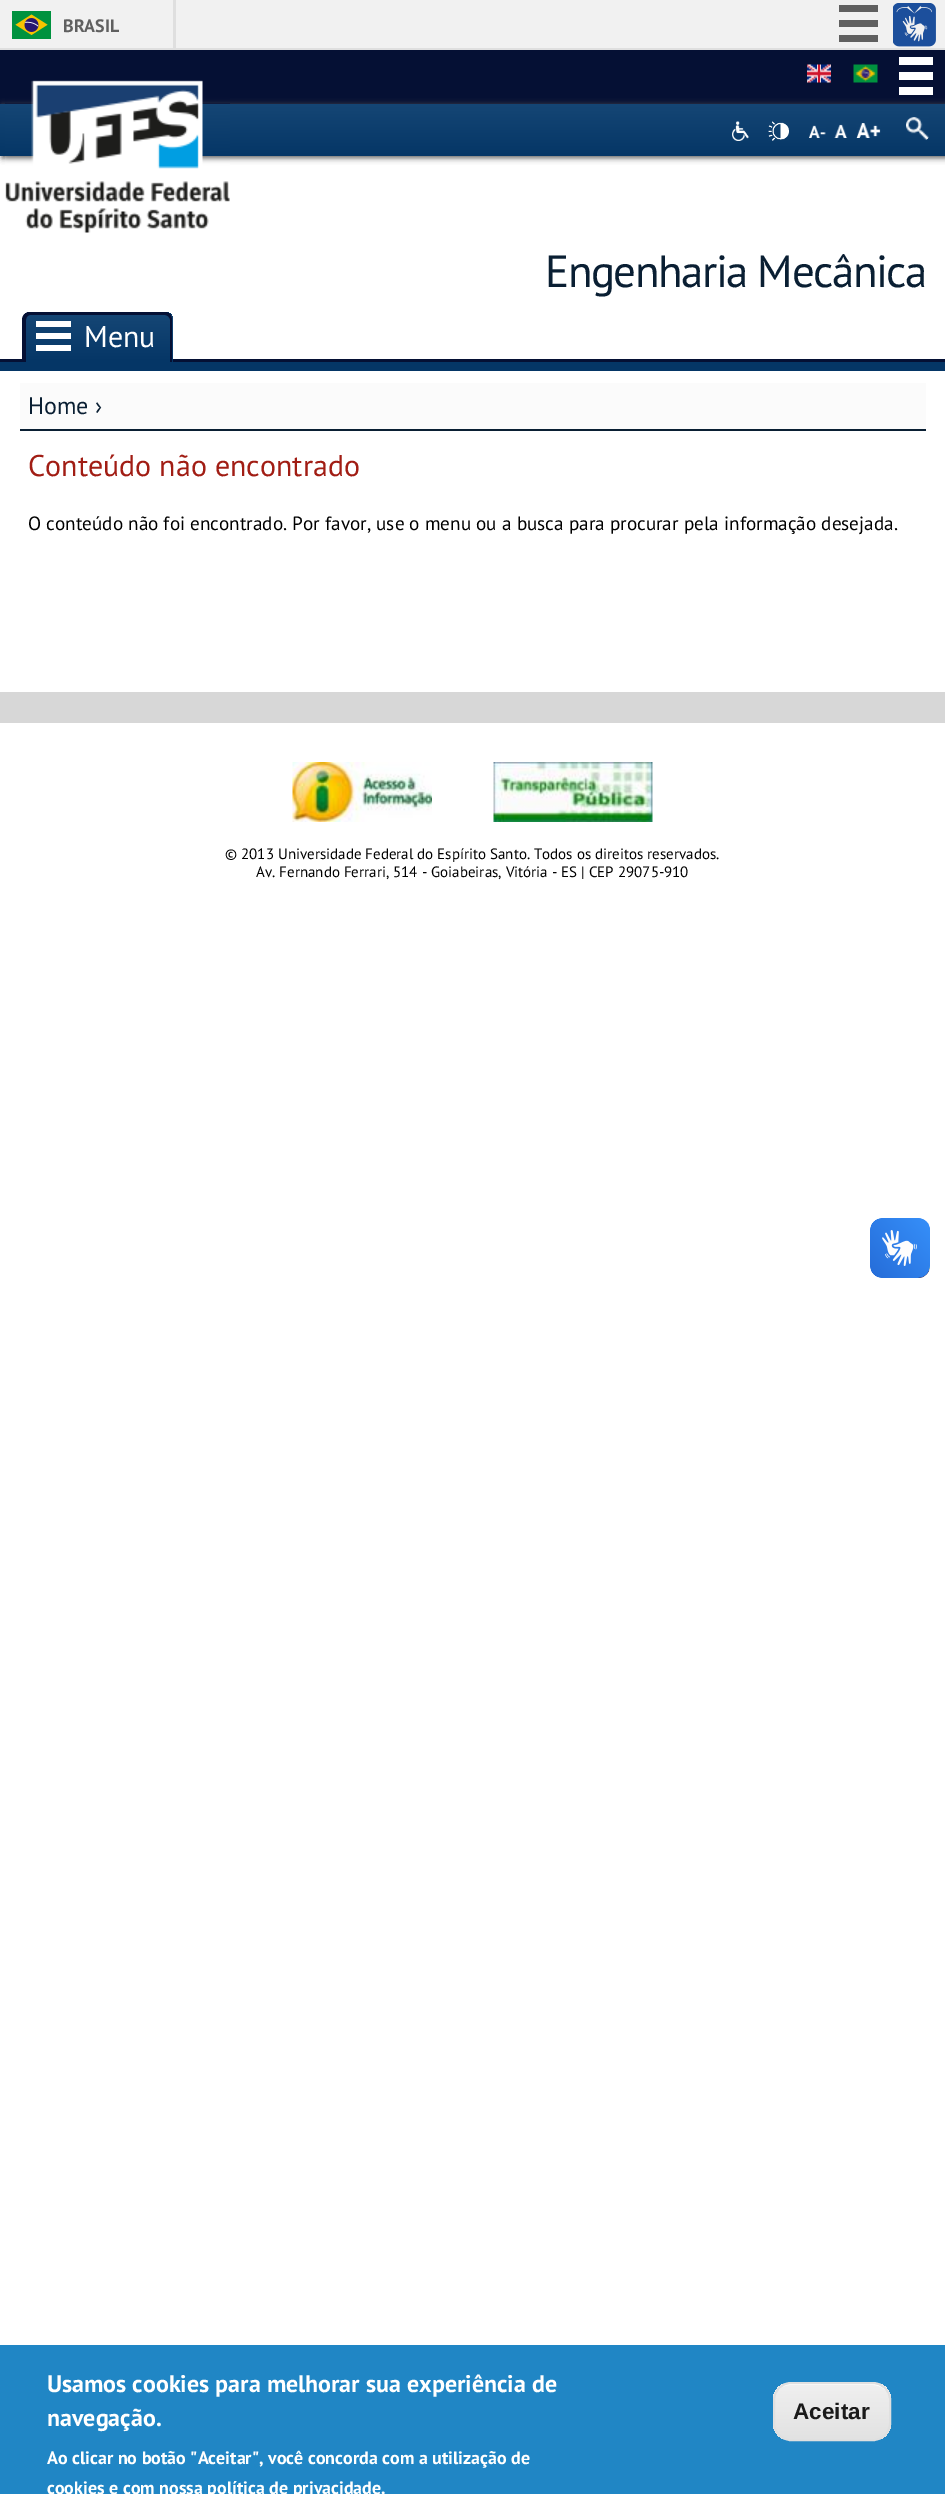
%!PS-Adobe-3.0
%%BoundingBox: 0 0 945 2494
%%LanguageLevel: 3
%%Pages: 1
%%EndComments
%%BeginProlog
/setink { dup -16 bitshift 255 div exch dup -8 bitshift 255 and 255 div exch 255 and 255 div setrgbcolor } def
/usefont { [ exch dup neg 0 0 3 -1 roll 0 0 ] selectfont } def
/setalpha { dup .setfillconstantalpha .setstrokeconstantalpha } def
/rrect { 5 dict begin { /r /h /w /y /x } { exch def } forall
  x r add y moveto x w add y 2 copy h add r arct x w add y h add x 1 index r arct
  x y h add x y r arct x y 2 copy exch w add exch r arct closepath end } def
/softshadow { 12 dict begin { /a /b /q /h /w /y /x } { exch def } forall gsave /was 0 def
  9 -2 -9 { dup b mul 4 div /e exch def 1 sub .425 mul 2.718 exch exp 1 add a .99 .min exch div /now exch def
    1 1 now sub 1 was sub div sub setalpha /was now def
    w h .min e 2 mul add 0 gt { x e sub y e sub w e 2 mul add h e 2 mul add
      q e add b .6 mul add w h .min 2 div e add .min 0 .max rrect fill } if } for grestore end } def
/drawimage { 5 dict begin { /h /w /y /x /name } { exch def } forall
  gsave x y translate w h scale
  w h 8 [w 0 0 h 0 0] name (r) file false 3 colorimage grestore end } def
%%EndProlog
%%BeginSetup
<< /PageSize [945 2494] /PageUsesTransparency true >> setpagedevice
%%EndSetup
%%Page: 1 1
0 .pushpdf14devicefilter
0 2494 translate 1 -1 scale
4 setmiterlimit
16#FFFFFF setink
0 0 945 2494 rectfill
[
    [0 0 945 48 16#F1F1F1]
    [0 48 945 2 16#DFDFDF]
    [173 0 3 48 16#DFDFDF]
] { aload pop setink rectfill } forall
(img1.raw) 12 11 39 28 drawimage
/PTSans-Bold 18 usefont
16#606060 setink
63 32 moveto (BRASIL) show
[
    [839 5 39 7 16#606060]
    [839 20 39 7 16#606060]
    [839 35 39 7 16#606060]
] { aload pop setink rectfill } forall
(img2.raw) 893 3 43 44 drawimage
16#051034 setink
0 50 945 54 rectfill
(img3.raw) 807 64 24 19 drawimage
(img4.raw) 853 64 25 19 drawimage
[
    [899 57 34 8 16#FFFFFF]
    [899 72 34 8 16#FFFFFF]
    [899 87 34 8 16#FFFFFF]
] { aload pop setink rectfill } forall
16#595959 setink
2 105 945 53 0 3 1 softshadow
gsave 0 104 moveto 945 104 lineto 945 156 lineto 0 156 lineto closepath clip newpath
<< /ShadingType 2 /ColorSpace /DeviceRGB /Coords [473 103 473 156] /Extend [true true] /Function << /FunctionType 2 /Domain [0 1] /C0 [0.082 0.275 0.459] /C1 [0.02 0.212 0.4] /N 1 >> >> shfill grestore
(img5.raw) 5 80 225 153 drawimage
(img6.raw) 732 121 17 20 drawimage
(img7.raw) 768 121 21 20 drawimage
(img8.raw) 809 125 17 13 drawimage
(img9.raw) 834 124 14 14 drawimage
(img10.raw) 856 123 25 15 drawimage
(img11.raw) 906 117 23 23 drawimage
/PTSans-Regular 45 usefont
16#0A1F33 setink
545 287 moveto -1.5 0 (Engenharia Mecânica) ashow
16#053666 setink
0 362 945 9 rectfill
16#051034 setink
0 359 945 3 rectfill
gsave
31 312 moveto 165 312 lineto 169.5 312 173 315.5 173 320 curveto 173 362 lineto 23 362 lineto 23 320 lineto 23 315.5 26.5 312 31 312 curveto closepath clip newpath
gsave 23 312 moveto 173 312 lineto 173 315 lineto 23 315 lineto closepath clip newpath
<< /ShadingType 2 /ColorSpace /DeviceRGB /Coords [98 269 98 315] /Extend [true true] /Function << /FunctionType 2 /Domain [0 1] /C0 [0.082 0.275 0.459] /C1 [0.02 0.212 0.4] /N 1 >> >> shfill grestore
gsave 26 315 moveto 173 315 lineto 173 362 lineto 26 362 lineto closepath clip newpath
<< /ShadingType 2 /ColorSpace /DeviceRGB /Coords [98 315 98 362] /Extend [true true] /Function << /FunctionType 2 /Domain [0 1] /C0 [0.082 0.275 0.459] /C1 [0.02 0.212 0.4] /N 1 >> >> shfill grestore
grestore
30 312 moveto 165 312 lineto 169 312 172 315 172 320 curveto 172 362 lineto 22 362 lineto 22 320 lineto 22 315 26 312 30 312 curveto closepath 30 315 moveto 165 315 lineto 167 315 170 317 170 320 curveto 170 362 lineto 26 362 lineto 26 320 lineto 26 317 28 315 30 315 curveto closepath eofill
[
    [36 321 35 6 16#FFFFFF]
    [36 333 35 6 16#FFFFFF]
    [36 345 35 6 16#FFFFFF]
] { aload pop setink rectfill } forall
/PTSans-Regular 30 usefont
84 347 moveto (Menu) show
16#FBFBFB setink
20 383 906 46 rectfill
16#0A1F33 setink
20 429 906 2 rectfill
/PTSans-Regular 24 usefont
28 414 moveto (Home ›) show
/PTSans-Regular 30 usefont
16#A11D14 setink
28 476 moveto (Conteúdo não encontrado) show
/PTSans-Regular 19.2 usefont
16#000000 setink
28 530 moveto (O conteúdo não foi encontrado. Por favor, use o menu ou a busca para procurar pela informação desejada.) show
16#D7D7D7 setink
0 692 945 31 rectfill
(img12.raw) 292 762 140 60 drawimage
(img13.raw) 493 762 160 60 drawimage
/PTSans-Regular 15 usefont
16#000000 setink
225 859 moveto (© 2013 Universidade Federal do Espírito Santo. Todos os direitos reservados.) show
256 877 moveto (Av. Fernando Ferrari, 514 - Goiabeiras, Vitória - ES | CEP 29075-910) show
(img14.raw) 870 1218 60 60 drawimage
(img15.raw) 870 1218 60 60 drawimage
16#2086C5 setink
0 2345 945 149 rectfill
/PTSans-Bold 24 usefont
16#FFFFFF setink
47 2392 moveto (Usamos cookies para melhorar sua experiência de) show
47 2426 moveto (navegação.) show
/PTSans-Bold 18 usefont
47 2464 moveto (Ao clicar no botão "Aceitar", você concorda com a utilização de) show
47 2494 moveto (cookies e com nossa política de privacidade.) show
gsave
773 2382 118 59 18 rrect clip newpath
gsave 773 2384 moveto 891 2384 lineto 891 2439 lineto 773 2439 lineto closepath clip newpath
<< /ShadingType 2 /ColorSpace /DeviceRGB /Coords [832 2384 832 2439] /Extend [true true] /Function << /FunctionType 3 /Domain [0 1] /Functions [<< /FunctionType 2 /Domain [0 1] /C0 [0.937 0.937 0.937] /C1 [0.937 0.937 0.937] /N 1 >> << /FunctionType 2 /Domain [0 1] /C0 [0.937 0.937 0.937] /C1 [0.886 0.886 0.886] /N 1 >>] /Bounds [0.05] /Encode [0 1 0 1] >> >> shfill grestore
grestore
790 2385 moveto 873 2385 lineto 882 2385 890 2392 890 2402 curveto 890 2401 lineto 890 2392 882 2384 873 2384 curveto 791 2384 lineto 782 2384 774 2392 774 2401 curveto 774 2402 lineto 774 2392 781 2385 790 2385 curveto closepath fill
16#E0E0E0 setink
2 setlinewidth
774 2383 116 57 17 rrect stroke
/LiberationSans-Bold 22.5 usefont
16#1A1A1A setink
793 2419 moveto (Aceitar) show
.poppdf14devicefilter showpage
%%EOF
